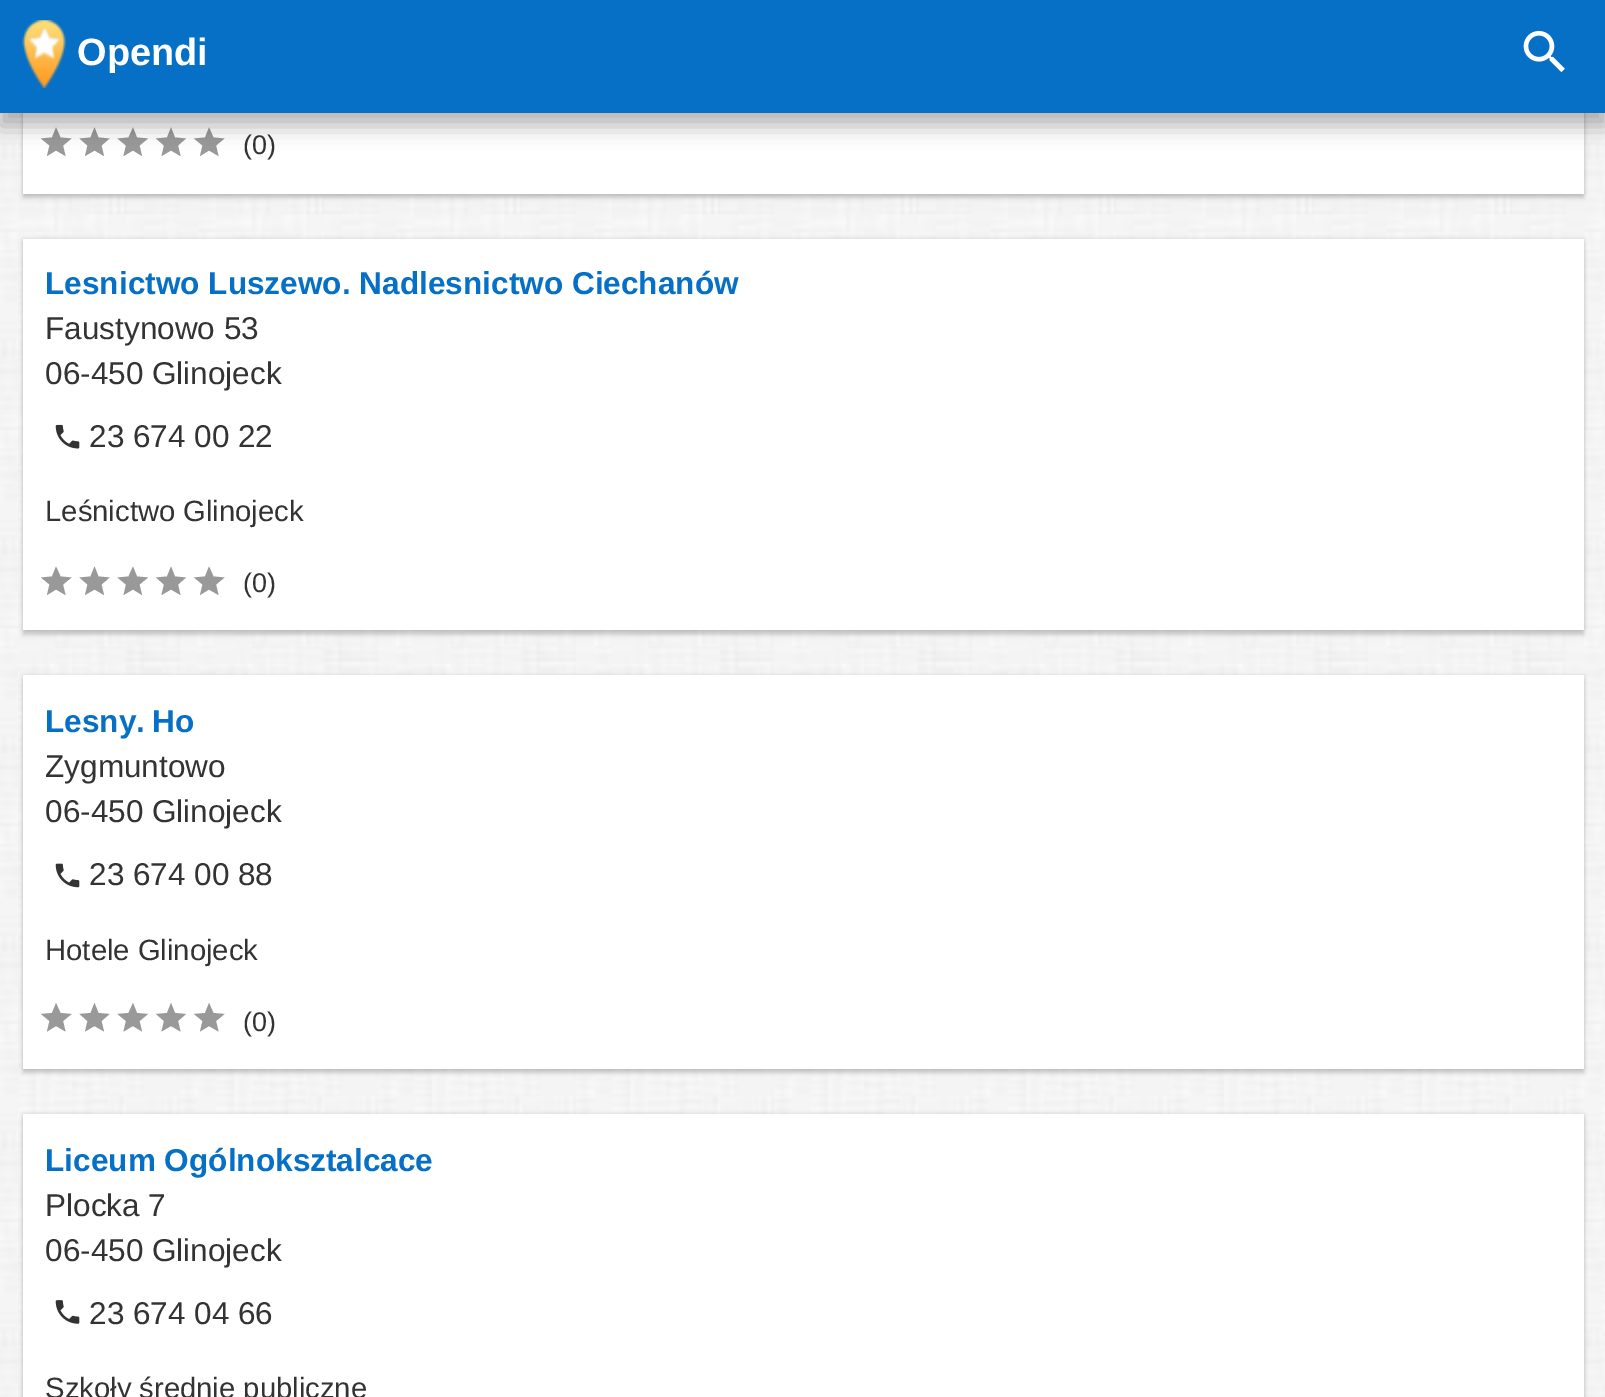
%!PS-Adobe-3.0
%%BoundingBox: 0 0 1605 1397
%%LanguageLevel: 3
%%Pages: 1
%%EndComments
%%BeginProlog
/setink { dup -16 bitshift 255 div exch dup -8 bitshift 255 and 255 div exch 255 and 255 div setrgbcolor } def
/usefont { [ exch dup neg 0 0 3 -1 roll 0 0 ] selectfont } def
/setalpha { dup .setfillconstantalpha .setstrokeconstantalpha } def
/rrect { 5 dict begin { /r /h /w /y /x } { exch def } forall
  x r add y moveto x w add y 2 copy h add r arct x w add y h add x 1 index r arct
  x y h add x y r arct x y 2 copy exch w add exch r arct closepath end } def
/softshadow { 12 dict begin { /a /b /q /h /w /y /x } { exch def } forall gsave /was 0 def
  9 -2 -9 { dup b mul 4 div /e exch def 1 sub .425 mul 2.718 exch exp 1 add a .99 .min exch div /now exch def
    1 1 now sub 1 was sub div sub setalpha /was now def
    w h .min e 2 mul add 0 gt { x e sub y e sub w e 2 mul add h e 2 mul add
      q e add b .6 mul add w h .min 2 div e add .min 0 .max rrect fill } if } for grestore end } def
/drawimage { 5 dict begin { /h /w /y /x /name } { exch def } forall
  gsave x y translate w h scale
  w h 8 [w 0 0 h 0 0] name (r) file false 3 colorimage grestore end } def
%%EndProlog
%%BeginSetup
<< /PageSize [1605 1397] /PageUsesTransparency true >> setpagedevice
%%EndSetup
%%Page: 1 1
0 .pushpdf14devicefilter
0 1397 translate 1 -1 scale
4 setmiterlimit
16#FFFFFF setink
0 0 1605 1397 rectfill
(img1.raw) 0 113 1605 1284 drawimage
16#000000 setink
23 -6 1561 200 0 2 0.12 softshadow
23 -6 1561 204 0 2 0.16 softshadow
16#FFFFFF setink
23 113 1561 81 rectfill
16#999999 setink
56 150.5 moveto 65.5 156 lineto 63 145.5 lineto 71.5 138.5 lineto 60.5 137.5 lineto 56 127.5 lineto 52 137.5 lineto 41 138.5 lineto 49.5 145.5 lineto 47 156 lineto closepath fill
94.5 150.5 moveto 104 156 lineto 101.5 145.5 lineto 109.5 138.5 lineto 98.5 137.5 lineto 94.5 127.5 lineto 90.5 137.5 lineto 79.5 138.5 lineto 87.5 145.5 lineto 85 156 lineto closepath fill
133 150.5 moveto 142 156 lineto 139.5 145.5 lineto 148 138.5 lineto 137 137.5 lineto 133 127.5 lineto 128.5 137.5 lineto 117.5 138.5 lineto 126 145.5 lineto 123.5 156 lineto closepath fill
171 150.5 moveto 180.5 156 lineto 178 145.5 lineto 186 138.5 lineto 175 137.5 lineto 171 127.5 lineto 167 137.5 lineto 156 138.5 lineto 164 145.5 lineto 161.5 156 lineto closepath fill
209 150.5 moveto 218.5 156 lineto 216 145.5 lineto 224.5 138.5 lineto 213.5 137.5 lineto 209 127.5 lineto 205 137.5 lineto 194 138.5 lineto 202.5 145.5 lineto 200 156 lineto closepath fill
16#000000 setink
0 14 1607 112 0 11 0.3 softshadow
16#0670C6 setink
0 0 1605 113 rectfill
(img2.raw) 22 20 44 68 drawimage
/LiberationSans-Bold 38 usefont
16#FFFFFF setink
77 65 moveto (Opendi) show
(img3.raw) 1523 30 42 43 drawimage
/LiberationSans-Regular 27 usefont
16#333333 setink
243 154 moveto (\(0\)) show
16#000000 setink
23 239 1561 391 0 2 0.12 softshadow
23 243 1561 392 0 2 0.16 softshadow
16#FFFFFF setink
23 239 1561 391 rectfill
/LiberationSans-Bold 31.6 usefont
16#0670C6 setink
45 294 moveto (Lesnictwo Luszewo. Nadlesnictwo Ciechanów) show
/LiberationSans-Regular 31.5 usefont
16#333333 setink
45 339 moveto (Faustynowo 53) show
45 384 moveto (06-450 Glinojeck) show
(img4.raw) 55 424 25 25 drawimage
89 447 moveto (23 674 00 22) show
/LiberationSans-Regular 29.25 usefont
45 521 moveto (Leśnictwo Glinojeck) show
16#999999 setink
56 589.5 moveto 65.5 595 lineto 63 584.5 lineto 71.5 577.5 lineto 60.5 576.5 lineto 56 566.5 lineto 52 576.5 lineto 41 577.5 lineto 49.5 584.5 lineto 47 595 lineto closepath fill
94.5 589.5 moveto 104 595 lineto 101.5 584.5 lineto 109.5 577.5 lineto 98.5 576.5 lineto 94.5 566.5 lineto 90.5 576.5 lineto 79.5 577.5 lineto 87.5 584.5 lineto 85 595 lineto closepath fill
133 589.5 moveto 142 595 lineto 139.5 584.5 lineto 148 577.5 lineto 137 576.5 lineto 133 566.5 lineto 128.5 576.5 lineto 117.5 577.5 lineto 126 584.5 lineto 123.5 595 lineto closepath fill
171 589.5 moveto 180.5 595 lineto 178 584.5 lineto 186 577.5 lineto 175 576.5 lineto 171 566.5 lineto 167 576.5 lineto 156 577.5 lineto 164 584.5 lineto 161.5 595 lineto closepath fill
209 589.5 moveto 218.5 595 lineto 216 584.5 lineto 224.5 577.5 lineto 213.5 576.5 lineto 209 566.5 lineto 205 576.5 lineto 194 577.5 lineto 202.5 584.5 lineto 200 595 lineto closepath fill
/LiberationSans-Regular 27 usefont
16#333333 setink
243 592 moveto (\(0\)) show
16#000000 setink
23 675 1561 394 0 2 0.12 softshadow
23 680 1561 393 0 2 0.16 softshadow
16#FFFFFF setink
23 675 1561 394 rectfill
/LiberationSans-Bold 31.6 usefont
16#0670C6 setink
45 732 moveto -2 0 32 (Lesny. Ho) widthshow
/LiberationSans-Regular 31.5 usefont
16#333333 setink
45 777 moveto (Zygmuntowo) show
45 822 moveto (06-450 Glinojeck) show
(img5.raw) 55 863 25 25 drawimage
89 885 moveto (23 674 00 88) show
/LiberationSans-Regular 29.25 usefont
45 960 moveto (Hotele Glinojeck) show
16#999999 setink
56 1026 moveto 65.5 1031.5 lineto 63 1021 lineto 71.5 1014 lineto 60.5 1013 lineto 56 1003 lineto 52 1013 lineto 41 1014 lineto 49.5 1021 lineto 47 1031.5 lineto closepath fill
94.5 1026 moveto 104 1031.5 lineto 101.5 1021 lineto 109.5 1014 lineto 98.5 1013 lineto 94.5 1003 lineto 90.5 1013 lineto 79.5 1014 lineto 87.5 1021 lineto 85 1031.5 lineto closepath fill
133 1026 moveto 142 1031.5 lineto 139.5 1021 lineto 148 1014 lineto 137 1013 lineto 133 1003 lineto 128.5 1013 lineto 117.5 1014 lineto 126 1021 lineto 123.5 1031.5 lineto closepath fill
171 1026 moveto 180.5 1031.5 lineto 178 1021 lineto 186 1014 lineto 175 1013 lineto 171 1003 lineto 167 1013 lineto 156 1014 lineto 164 1021 lineto 161.5 1031.5 lineto closepath fill
209 1026 moveto 218.5 1031.5 lineto 216 1021 lineto 224.5 1014 lineto 213.5 1013 lineto 209 1003 lineto 205 1013 lineto 194 1014 lineto 202.5 1021 lineto 200 1031.5 lineto closepath fill
/LiberationSans-Regular 27 usefont
16#333333 setink
243 1031 moveto (\(0\)) show
16#000000 setink
23 1114 1561 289 0 2 0.12 softshadow
23 1118 1561 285 0 2 0.16 softshadow
16#FFFFFF setink
23 1114 1561 283 rectfill
/LiberationSans-Bold 31.6 usefont
16#0670C6 setink
45 1171 moveto (Liceum Ogólnoksztalcace) show
/LiberationSans-Regular 31.5 usefont
16#333333 setink
45 1216 moveto (Plocka 7) show
45 1261 moveto (06-450 Glinojeck) show
(img6.raw) 55 1300 25 24 drawimage
89 1324 moveto (23 674 04 66) show
/LiberationSans-Regular 29.25 usefont
45 1398 moveto (Szkoły średnie publiczne) show
.poppdf14devicefilter showpage
%%EOF
